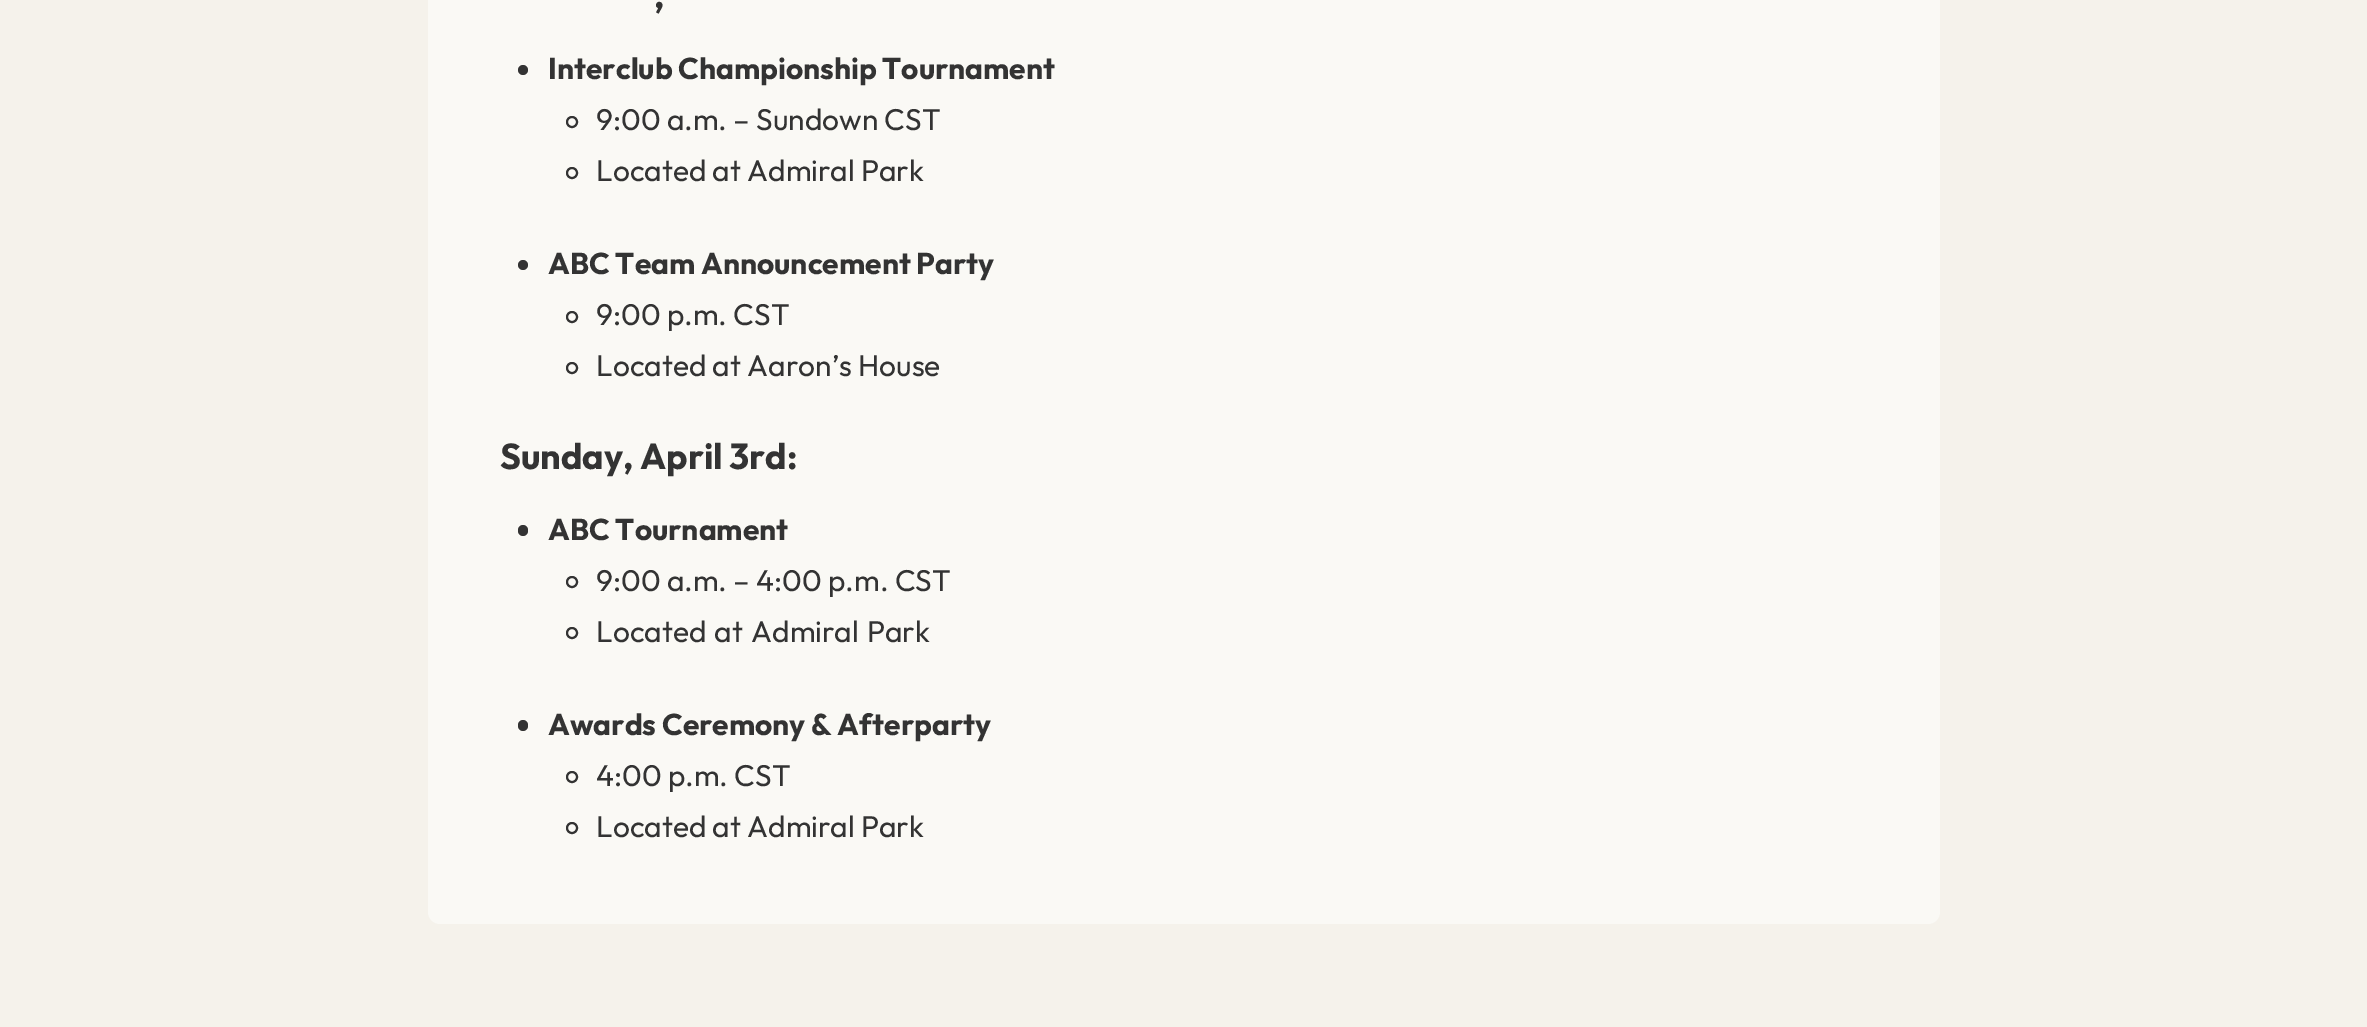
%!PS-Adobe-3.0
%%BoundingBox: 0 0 2367 1027
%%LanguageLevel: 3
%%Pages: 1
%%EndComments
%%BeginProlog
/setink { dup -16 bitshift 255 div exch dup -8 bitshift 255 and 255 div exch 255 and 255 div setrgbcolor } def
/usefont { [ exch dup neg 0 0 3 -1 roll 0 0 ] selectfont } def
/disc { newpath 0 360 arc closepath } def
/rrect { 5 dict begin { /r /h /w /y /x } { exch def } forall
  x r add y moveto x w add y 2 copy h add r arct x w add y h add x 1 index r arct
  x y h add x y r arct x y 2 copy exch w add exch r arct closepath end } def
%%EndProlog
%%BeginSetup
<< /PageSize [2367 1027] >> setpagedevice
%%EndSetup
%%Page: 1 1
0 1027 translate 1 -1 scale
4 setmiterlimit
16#F5F2EB setink
0 0 2367 1027 rectfill
16#FAF9F5 setink
428 -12 1512 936 12 rrect fill
/Outfit-Thin 36 usefont
16#333333 setink
654 8 moveto (,) show
523 70 5 disc fill
/Outfit-Thin 30 usefont
548 79 moveto (Interclub Championship Tournament) show
2 setlinewidth
572 122 5 disc stroke
/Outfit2-Thin 30 usefont
596 130 moveto (9:00 a.m. – Sundown CST) show
572 173 5 disc stroke
596 181 moveto (Located at Admiral Park) show
523 265 5 disc fill
/Outfit-Thin 30 usefont
548 274 moveto (ABC Team Announcement Party) show
572 317 5 disc stroke
/Outfit2-Thin 30 usefont
596 325 moveto (9:00 p.m. CST) show
572 368 5 disc stroke
596 376 moveto (Located at Aaron’s House) show
/Outfit-Thin 36 usefont
500 469 moveto (Sunday, April 3rd:) show
518 525 10 11 5 rrect fill
/Outfit-Thin 30 usefont
548 540 moveto (ABC Tournament) show
572 582 5 disc stroke
/Outfit2-Thin 30 usefont
596 591 moveto (9:00 a.m. – 4:00 p.m. CST) show
572 633 5 disc stroke
596 642 moveto 2 0 32 (Located at Admiral Park) widthshow
518 720 10 11 5 rrect fill
/Outfit-Thin 30 usefont
548 735 moveto (Awards Ceremony & Afterparty) show
572 777 5 disc stroke
/Outfit2-Thin 30 usefont
596 786 moveto (4:00 p.m. CST) show
572 828 5 disc stroke
596 837 moveto (Located at Admiral Park) show
showpage
%%EOF
